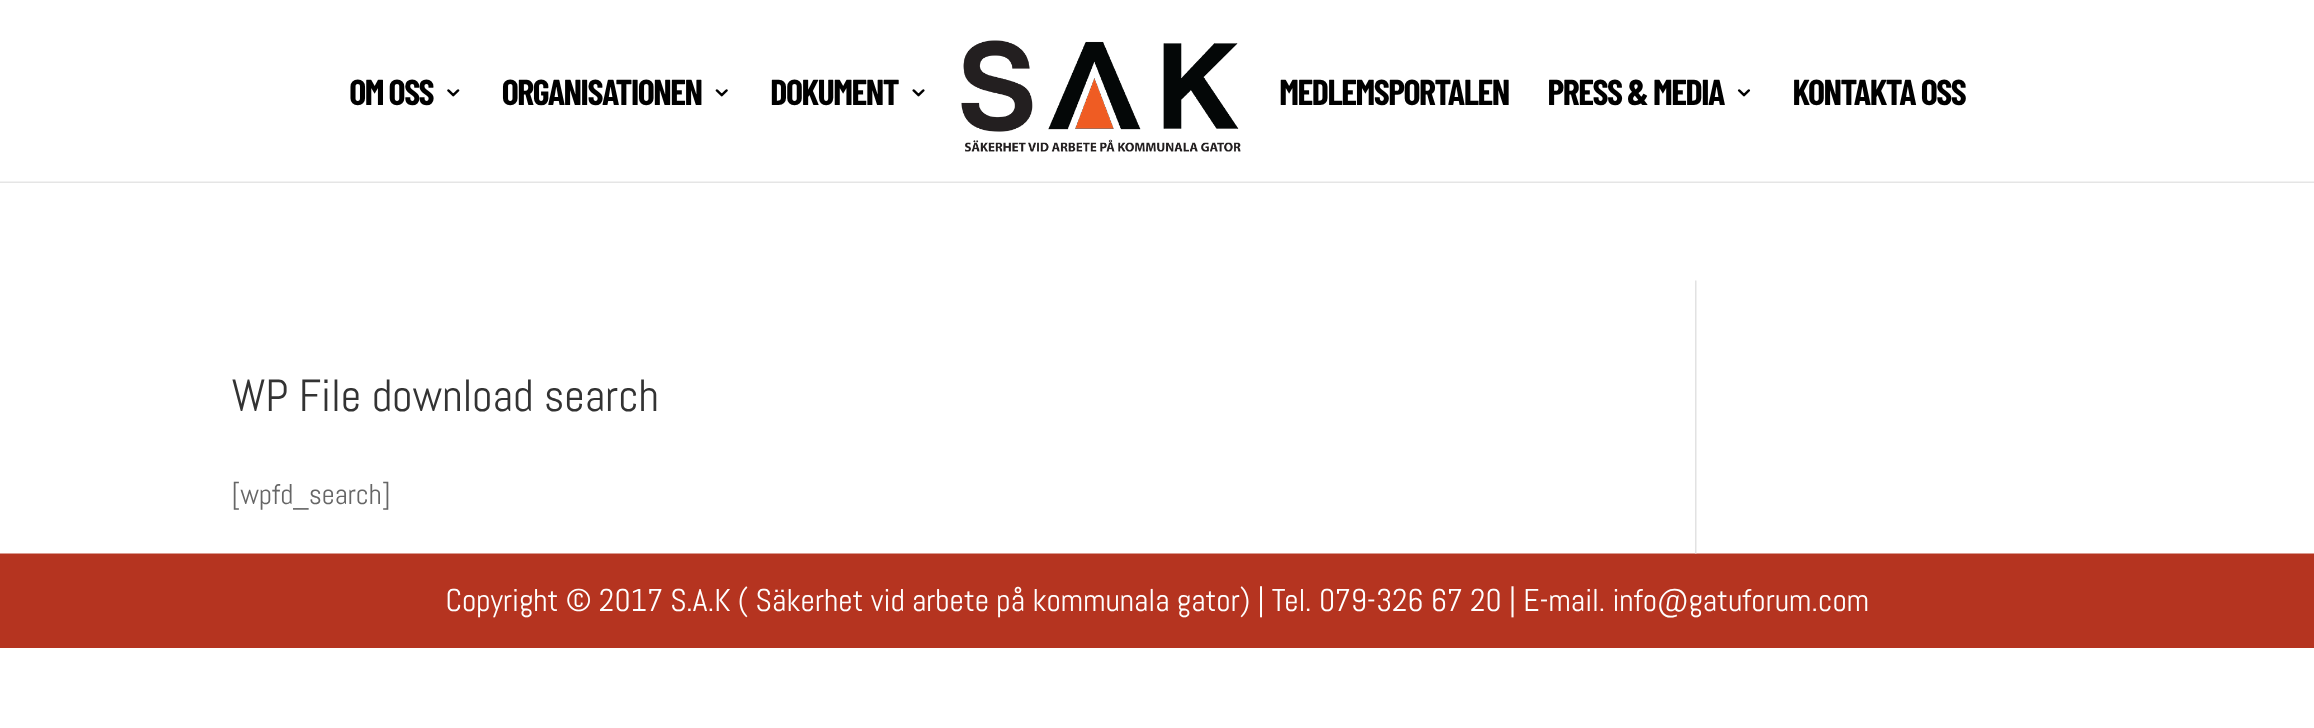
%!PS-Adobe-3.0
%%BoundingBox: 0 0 2314 728
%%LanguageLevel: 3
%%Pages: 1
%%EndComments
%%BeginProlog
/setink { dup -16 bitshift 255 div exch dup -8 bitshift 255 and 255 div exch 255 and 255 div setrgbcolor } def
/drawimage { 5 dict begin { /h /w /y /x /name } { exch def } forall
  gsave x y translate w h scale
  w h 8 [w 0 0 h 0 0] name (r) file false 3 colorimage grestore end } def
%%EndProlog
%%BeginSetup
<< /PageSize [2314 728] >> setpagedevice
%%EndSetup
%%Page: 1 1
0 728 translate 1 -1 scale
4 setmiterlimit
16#FFFFFF setink
0 0 2314 728 rectfill
(img1.raw) 0 40 2314 608 drawimage
showpage
%%EOF
